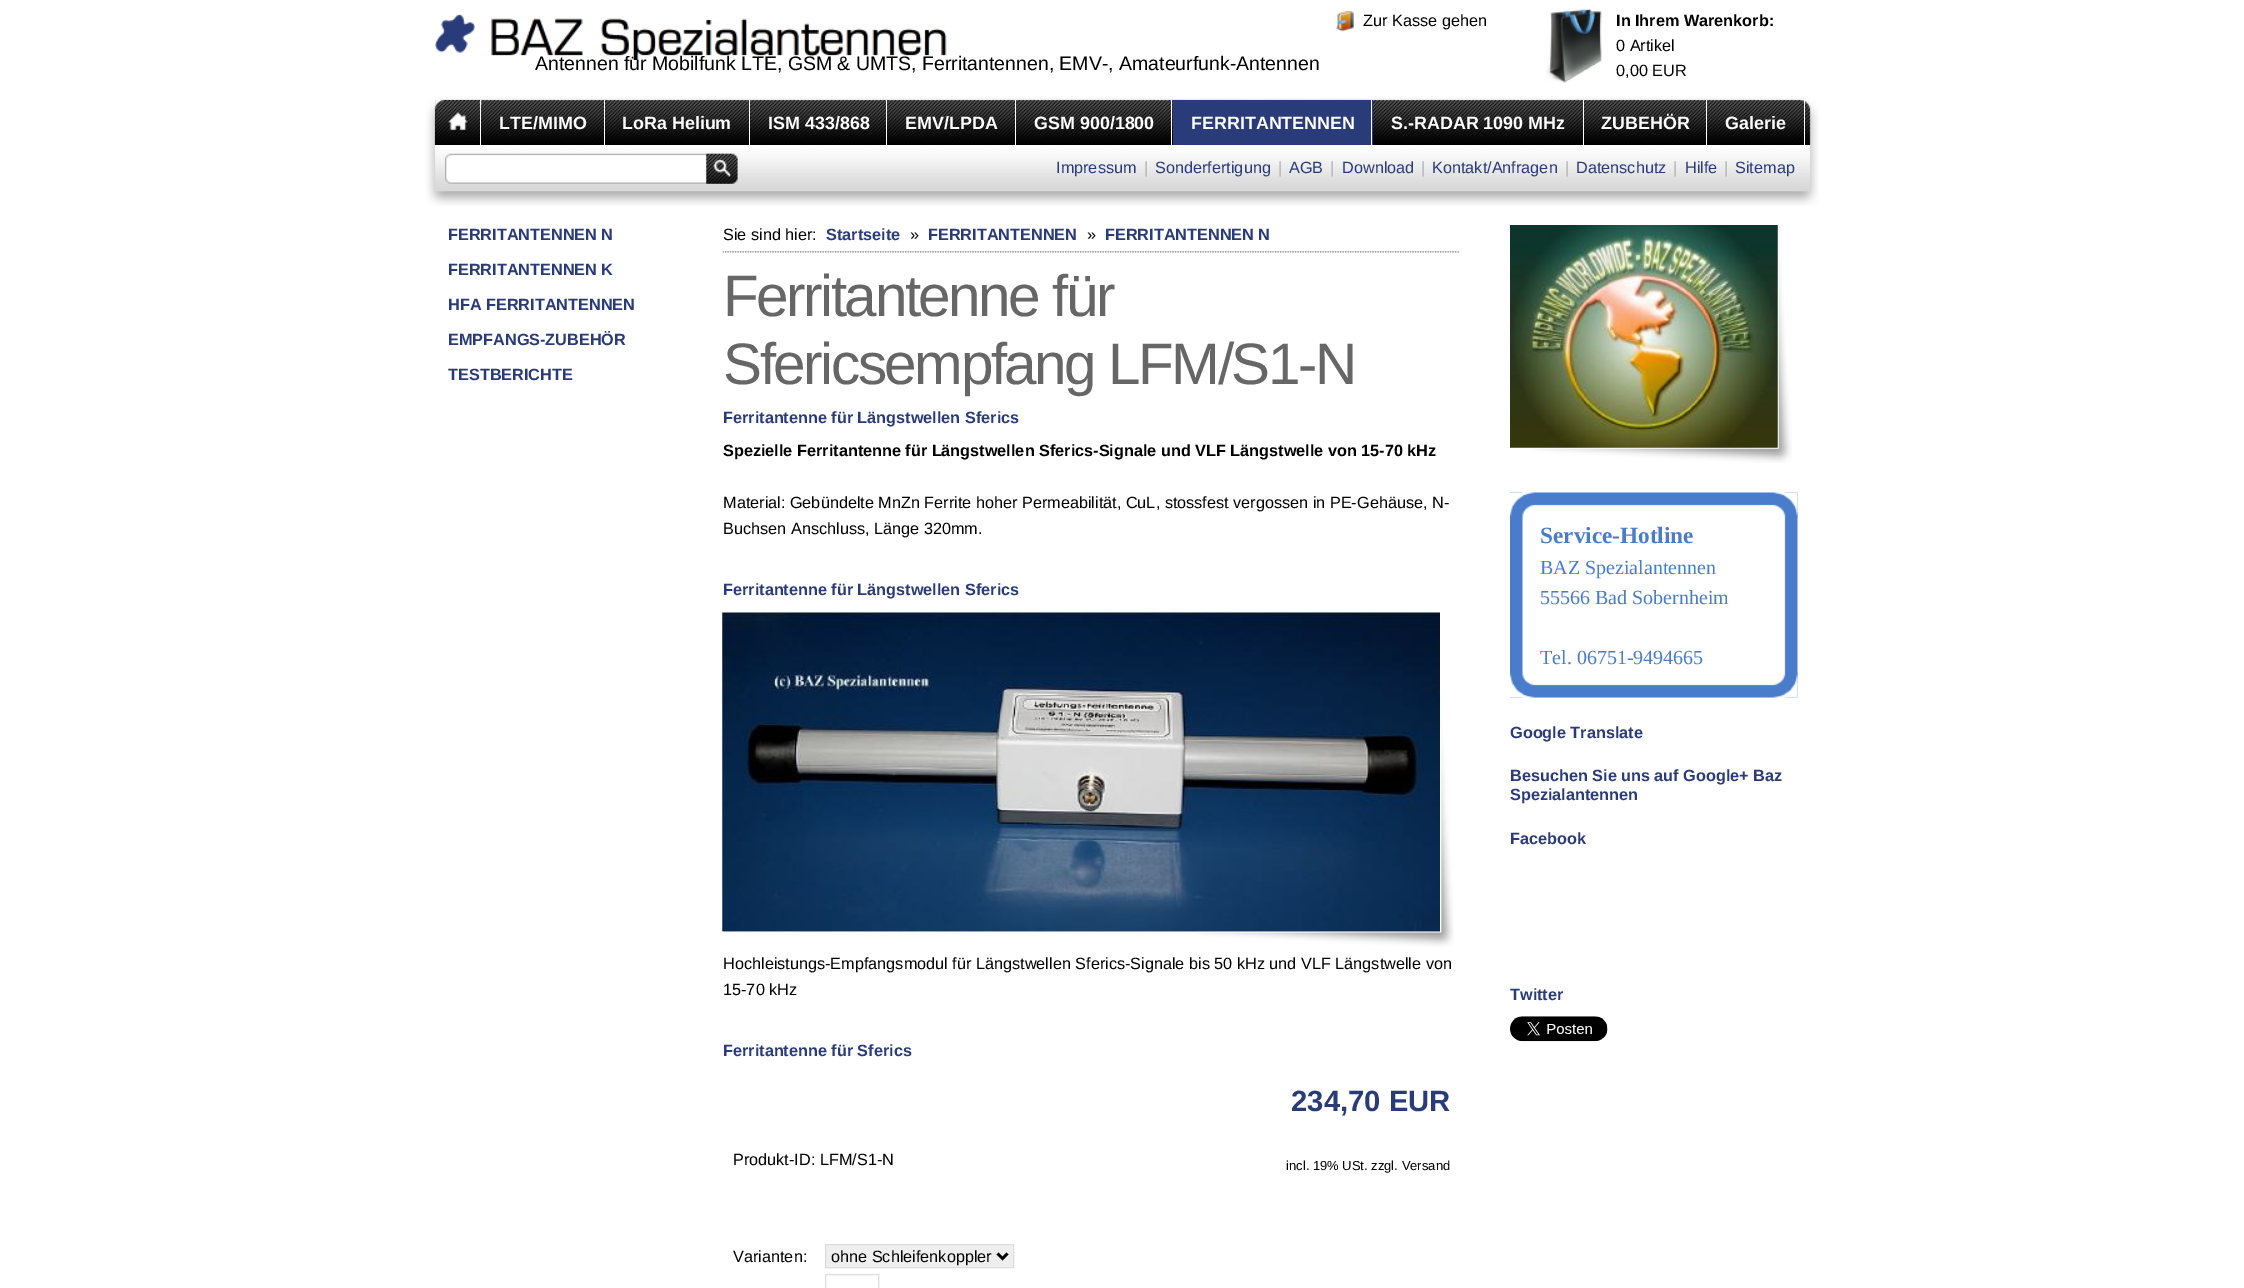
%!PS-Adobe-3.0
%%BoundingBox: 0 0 2244 1288
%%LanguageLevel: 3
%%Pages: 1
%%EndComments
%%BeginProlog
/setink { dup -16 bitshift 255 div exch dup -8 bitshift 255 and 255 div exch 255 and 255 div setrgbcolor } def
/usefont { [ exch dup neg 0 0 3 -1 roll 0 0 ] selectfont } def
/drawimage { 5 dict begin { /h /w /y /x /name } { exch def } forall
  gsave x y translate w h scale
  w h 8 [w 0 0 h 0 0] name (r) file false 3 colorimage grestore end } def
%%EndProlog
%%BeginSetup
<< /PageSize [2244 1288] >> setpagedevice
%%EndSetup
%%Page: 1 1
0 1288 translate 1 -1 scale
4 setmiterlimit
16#FFFFFF setink
0 0 2244 1288 rectfill
(img1.raw) 435 13 40 40 drawimage
(img2.raw) 491 18 456 42 drawimage
(img3.raw) 1335 11 19 21 drawimage
/LiberationSans-Regular 16.25 usefont
16#000000 setink
1363 26 moveto (Zur Kasse gehen) show
(img4.raw) 1546 8 56 75 drawimage
/LiberationSans-Bold 16.25 usefont
1616 26 moveto (In Ihrem Warenkorb:) show
/LiberationSans-Regular 16.25 usefont
1616 51 moveto (0 Artikel) show
1616 76 moveto (0,00 EUR) show
/LiberationSans-Regular 19.5 usefont
535 70 moveto (Antennen für Mobilfunk LTE, GSM & UMTS, Ferritantennen, EMV-, Amateurfunk-Antennen) show
(img5.raw) 426 98 1393 47 drawimage
(img6.raw) 435 100 47 45 drawimage
16#FFFFFF setink
480 100 1 45 rectfill
604 100 1 45 rectfill
/LiberationSans-Bold 17.9 usefont
499 129 moveto (LTE/MIMO) show
749 100 1 45 rectfill
622 129 moveto (LoRa Helium) show
886 100 1 45 rectfill
768 129 moveto (ISM 433/868) show
1015 100 1 45 rectfill
905 129 moveto (EMV/LPDA) show
1171 100 1 45 rectfill
1034 129 moveto (GSM 900/1800) show
16#2A3B7A setink
1173 100 200 45 rectfill
16#FFFFFF setink
1371 100 1 45 rectfill
1191 129 moveto (FERRITANTENNEN) show
1583 100 1 45 rectfill
1391 129 moveto (S.-RADAR 1090 MHz) show
1706 100 1 45 rectfill
1601 129 moveto (ZUBEHÖR) show
1804 100 1 45 rectfill
1725 129 moveto (Galerie) show
(img7.raw) 426 145 1393 61 drawimage
(img8.raw) 445 153 293 31 drawimage
(img9.raw) 706 153 32 31 drawimage
/LiberationSans-Regular 16.25 usefont
16#2A3B7A setink
1056 173 moveto (Impressum) show
16#AFAFAF setink
1144 173 moveto (|) show
16#2A3B7A setink
1155 173 moveto (Sonderfertigung) show
16#AFAFAF setink
1278 173 moveto (|) show
16#2A3B7A setink
1289 173 moveto (AGB) show
16#AFAFAF setink
1330 173 moveto (|) show
16#2A3B7A setink
1342 173 moveto (Download) show
16#AFAFAF setink
1421 173 moveto (|) show
16#2A3B7A setink
1432 173 moveto (Kontakt/Anfragen) show
16#AFAFAF setink
1565 173 moveto (|) show
16#2A3B7A setink
1576 173 moveto (Datenschutz) show
16#AFAFAF setink
1673 173 moveto (|) show
16#2A3B7A setink
1685 173 moveto (Hilfe) show
16#AFAFAF setink
1724 173 moveto (|) show
16#2A3B7A setink
1735 173 moveto (Sitemap) show
/LiberationSans-Bold 16.25 usefont
[
    [(FERRITANTENNEN N) 448 240]
    [(FERRITANTENNEN K) 448 275]
    [(HFA FERRITANTENNEN) 448 310]
    [(EMPFANGS-ZUBEHÖR) 448 345]
    [(TESTBERICHTE) 448 380]
] { aload pop moveto show } forall
(img10.raw) 722 251 738 2 drawimage
/LiberationSans-Regular 16.25 usefont
16#000000 setink
723 240 moveto (Sie sind hier:) show
/LiberationSans-Bold 16.25 usefont
16#2A3B7A setink
826 240 moveto (Startseite) show
/LiberationSans-Regular 16.25 usefont
16#000000 setink
910 240 moveto (») show
/LiberationSans-Bold 16.25 usefont
16#2A3B7A setink
928 240 moveto (FERRITANTENNEN) show
/LiberationSans-Regular 16.25 usefont
16#000000 setink
1087 240 moveto (») show
/LiberationSans-Bold 16.25 usefont
16#2A3B7A setink
1105 240 moveto (FERRITANTENNEN N) show
/LiberationSans-Regular 58.5 usefont
16#666666 setink
723 316 moveto -2.5 0 (Ferritantenne für) ashow
723 384 moveto -2.5 0 (Sfericsempfang LFM/S1-N) ashow
/LiberationSans-Bold 16.25 usefont
16#2A3B7A setink
723 423 moveto (Ferritantenne für Längstwellen Sferics) show
16#000000 setink
723 456 moveto (Spezielle Ferritantenne für Längstwellen Sferics-Signale und VLF Längstwelle von 15-70 kHz) show
/LiberationSans-Regular 16.25 usefont
723 508 moveto (Material: Gebündelte MnZn Ferrite hoher Permeabilität, CuL, stossfest vergossen in PE-Gehäuse, N-) show
723 534 moveto (Buchsen Anschluss, Länge 320mm.) show
/LiberationSans-Bold 16.25 usefont
16#2A3B7A setink
723 595 moveto (Ferritantenne für Längstwellen Sferics) show
(img11.raw) 722 611 732 336 drawimage
(img12.raw) 722 612 718 320 drawimage
/LiberationSans-Regular 16.25 usefont
16#000000 setink
723 969 moveto (Hochleistungs-Empfangsmodul für Längstwellen Sferics-Signale bis 50 kHz und VLF Längstwelle von) show
723 995 moveto (15-70 kHz) show
/LiberationSans-Bold 16.25 usefont
16#2A3B7A setink
723 1056 moveto (Ferritantenne für Sferics) show
/LiberationSans-Bold 29.25 usefont
1291 1111 moveto (234,70 EUR) show
/LiberationSans-Regular 16.25 usefont
16#000000 setink
733 1165 moveto (Produkt-ID: LFM/S1-N) show
/LiberationSans-Regular 13 usefont
1286 1170 moveto (incl. 19% USt. zzgl. Versand) show
/LiberationSans-Regular 16.25 usefont
733 1262 moveto (Varianten:) show
16#EFEFEF setink
825.5 1244.5 moveto 1013.5 1244.5 lineto 1013.5 1267.5 lineto 825.5 1267.5 lineto closepath gsave fill grestore
16#DDDDDD setink
stroke
16#000000 setink
2.5 setlinewidth
997.5 1253.5 moveto 1002.5 1258.5 lineto 1007.5 1253.5 lineto stroke
831 1262 moveto (ohne Schleifenkoppler) show
16#DDDDDD setink
1 setlinewidth
825.5 1274.5 53 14 rectstroke
(img13.raw) 1510 225 282 238 drawimage
(img14.raw) 1510 225 268 223 drawimage
(img15.raw) 1510 492 288 206 drawimage
(img16.raw) 1510 492 288 26 drawimage
/LiberationSerif-Bold 23.25 usefont
16#497DCB setink
1540 543 moveto (Service-Hotline) show
/LiberationSerif-Regular 20 usefont
[
    [(BAZ Spezialantennen) 1540 574]
    [(55566 Bad Sobernheim) 1540 604]
    [(Tel. 06751-9494665) 1540 664]
] { aload pop moveto show } forall
(img17.raw) 1510 672 288 26 drawimage
/LiberationSans-Bold 16.25 usefont
16#2A3B7A setink
[
    [(Google Translate) 1510 738]
    [(Besuchen Sie uns auf Google+ Baz) 1510 781]
    [(Spezialantennen) 1510 800]
    [(Facebook) 1510 844]
    [(Twitter) 1510 1000]
] { aload pop moveto show } forall
(img18.raw) 1510 1016 98 26 drawimage
showpage
%%EOF
